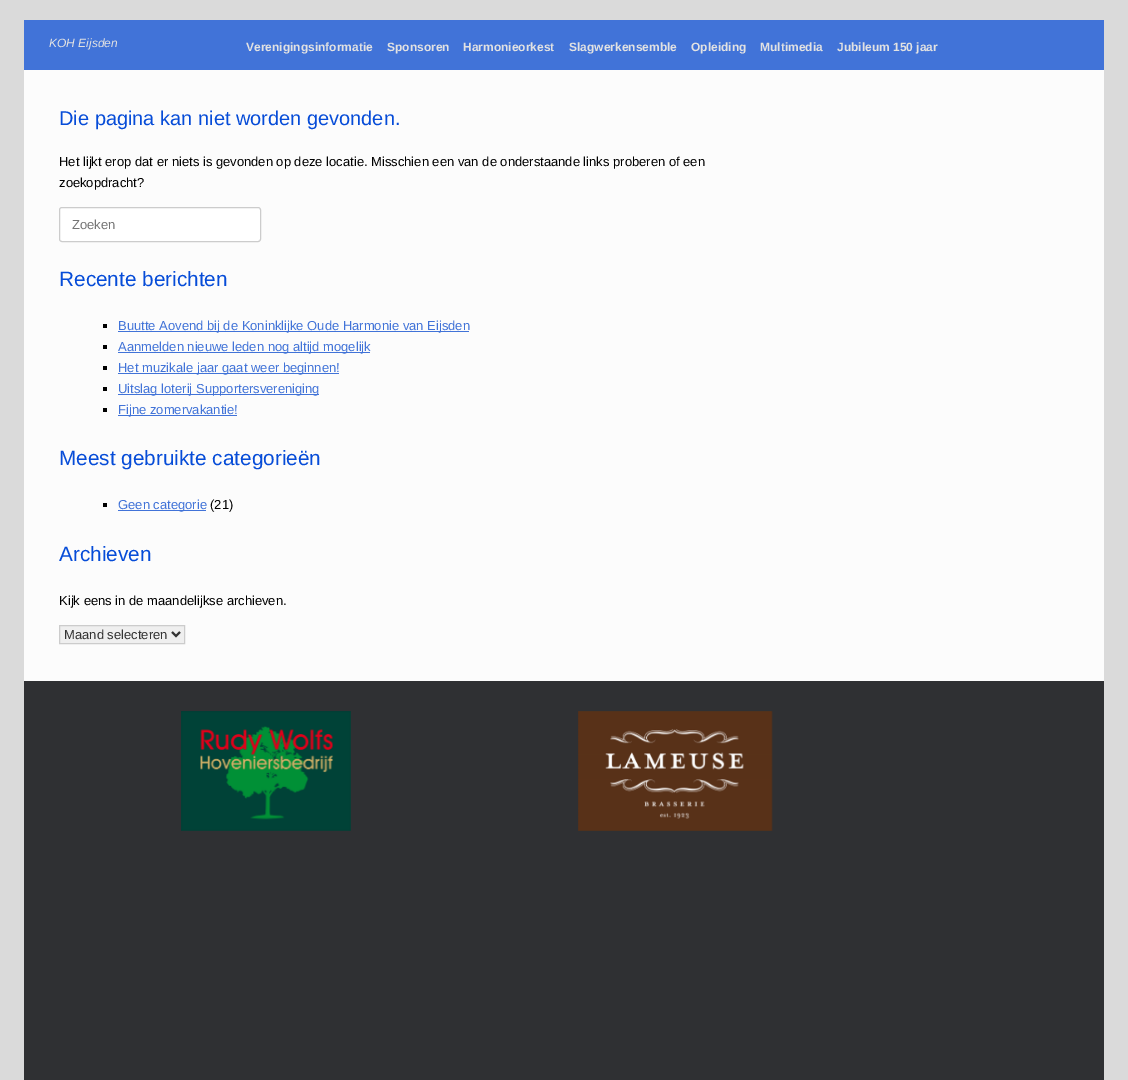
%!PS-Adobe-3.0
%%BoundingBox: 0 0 1128 1080
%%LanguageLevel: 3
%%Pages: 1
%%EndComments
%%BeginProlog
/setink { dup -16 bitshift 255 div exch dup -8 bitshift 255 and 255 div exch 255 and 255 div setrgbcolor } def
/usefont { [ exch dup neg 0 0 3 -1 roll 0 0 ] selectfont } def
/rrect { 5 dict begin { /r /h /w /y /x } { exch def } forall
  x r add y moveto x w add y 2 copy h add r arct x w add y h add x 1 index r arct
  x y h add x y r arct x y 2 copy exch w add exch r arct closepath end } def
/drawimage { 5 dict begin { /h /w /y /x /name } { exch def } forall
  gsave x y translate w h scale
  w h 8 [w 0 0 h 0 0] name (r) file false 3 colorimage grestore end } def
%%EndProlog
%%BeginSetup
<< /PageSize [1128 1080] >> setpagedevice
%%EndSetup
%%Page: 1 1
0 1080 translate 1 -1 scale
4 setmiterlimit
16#DADADA setink
0 0 1128 1080 rectfill
16#4173D8 setink
24 20 1080 50 rectfill
/LiberationSans-Italic 12 usefont
16#E2E2E2 setink
49 47 moveto (KOH Eijsden) show
/LiberationSans-Bold 12 usefont
[
    [(Verenigingsinformatie) 246 51]
    [(Sponsoren) 387 51]
    [(Harmonieorkest) 463 51]
    [(Slagwerkensemble) 569 51]
    [(Opleiding) 691 51]
    [(Multimedia) 760 51]
    [(Jubileum 150 jaar) 837 51]
] { aload pop moveto show } forall
16#FCFCFC setink
24 70 1080 611 rectfill
/LiberationSans-Regular 20 usefont
16#064CD8 setink
59 125 moveto (Die pagina kan niet worden gevonden.) show
/LiberationSans-Regular 13 usefont
16#000000 setink
59 166 moveto (Het lijkt erop dat er niets is gevonden op deze locatie. Misschien een van de onderstaande links proberen of een) show
59 187 moveto (zoekopdracht?) show
16#FFFFFF setink
59.5 207.5 201 34 2.5 rrect gsave fill grestore
16#CCCCCC setink
stroke
16#757575 setink
72 229 moveto (Zoeken) show
/LiberationSans-Regular 20.75 usefont
16#064CD8 setink
59 286 moveto (Recente berichten) show
16#000000 setink
103 324 4 4 rectfill
16#4173D8 setink
118 331 351 1 rectfill
/LiberationSans-Regular 13 usefont
118 330 moveto (Buutte Aovend bij de Koninklijke Oude Harmonie van Eijsden) show
16#000000 setink
103 345 4 4 rectfill
16#4173D8 setink
118 352 252 1 rectfill
118 351 moveto (Aanmelden nieuwe leden nog altijd mogelijk) show
16#000000 setink
103 366 4 4 rectfill
16#4173D8 setink
118 373 221 1 rectfill
118 372 moveto (Het muzikale jaar gaat weer beginnen!) show
16#000000 setink
103 387 4 4 rectfill
16#4173D8 setink
118 394 201 1 rectfill
118 393 moveto (Uitslag loterij Supportersvereniging) show
16#000000 setink
103 408 4 4 rectfill
16#4173D8 setink
118 415 119 1 rectfill
118 414 moveto (Fijne zomervakantie!) show
/LiberationSans-Regular 20.75 usefont
16#064CD8 setink
59 465 moveto (Meest gebruikte categorieën) show
16#000000 setink
103 503 4 4 rectfill
16#4173D8 setink
118 510 88 1 rectfill
/LiberationSans-Regular 13 usefont
118 509 moveto (Geen categorie) show
16#000000 setink
210 509 moveto (\(21\)) show
/LiberationSans-Regular 20.75 usefont
16#064CD8 setink
59 561 moveto (Archieven) show
/LiberationSans-Regular 13 usefont
16#000000 setink
59 605 moveto (Kijk eens in de maandelijkse archieven.) show
16#EFEFEF setink
59.5 625.5 moveto 184.5 625.5 lineto 184.5 643.5 lineto 59.5 643.5 lineto closepath gsave fill grestore
16#CCCCCC setink
stroke
16#333333 setink
2 setlinewidth
172 632 moveto 176 636 lineto 180 632 lineto stroke
64 639 moveto (Maand selecteren) show
16#2F3033 setink
24 681 1080 399 rectfill
(img1.raw) 181 711 170 120 drawimage
(img2.raw) 578 711 195 120 drawimage
showpage
%%EOF
